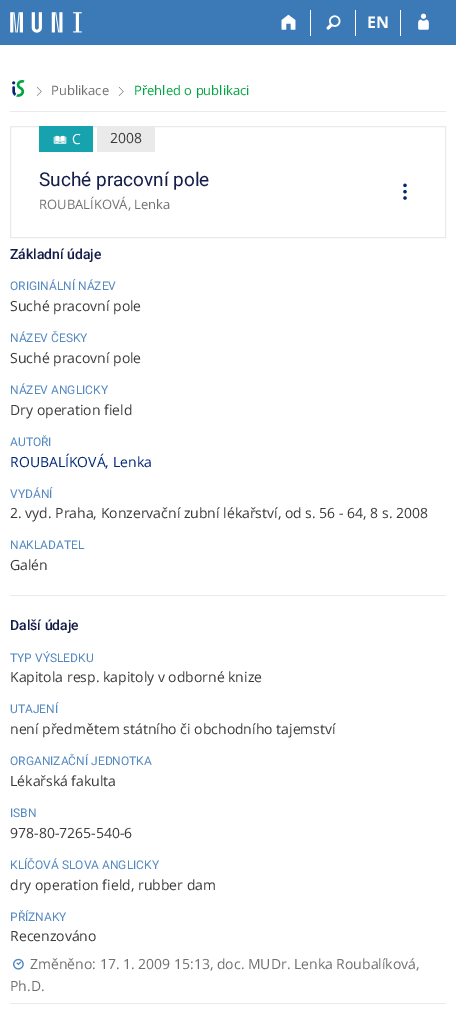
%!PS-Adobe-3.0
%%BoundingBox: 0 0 456 1015
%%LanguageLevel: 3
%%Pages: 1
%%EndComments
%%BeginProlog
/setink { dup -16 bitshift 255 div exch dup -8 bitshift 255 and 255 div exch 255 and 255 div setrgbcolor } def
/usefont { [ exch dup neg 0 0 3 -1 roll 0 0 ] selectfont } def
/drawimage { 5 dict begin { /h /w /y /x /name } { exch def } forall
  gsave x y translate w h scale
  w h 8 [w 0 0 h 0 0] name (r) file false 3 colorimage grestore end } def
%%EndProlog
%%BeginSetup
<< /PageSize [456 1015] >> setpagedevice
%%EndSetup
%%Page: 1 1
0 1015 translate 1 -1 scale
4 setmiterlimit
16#FFFFFF setink
0 0 456 1015 rectfill
16#3C7AB7 setink
0 0 456 45 rectfill
(img1.raw) 10 12 72 21 drawimage
16#FFFFFF setink
310 10 1 26 rectfill
(img2.raw) 281 14 15 16 drawimage
355 10 1 26 rectfill
(img3.raw) 326 15 15 15 drawimage
400 10 1 26 rectfill
/OpenSans-Bold 16 usefont
367 28 moveto (EN) show
(img4.raw) 418 13 11 17 drawimage
(img5.raw) 12 80 13 17 drawimage
(img6.raw) 36 87 6 9 drawimage
/OpenSans-Regular 13 usefont
16#707070 setink
51 95 moveto (Publikace) show
(img6.raw) 118 87 6 9 drawimage
16#00A442 setink
134 95 moveto (Přehled o publikaci) show
16#EAEAEA setink
10 111 436 1 rectfill
10.5 126.5 435 111 rectstroke
16#16A3AE setink
39 126 54 26 rectfill
(img7.raw) 53 135 14 9 drawimage
/OpenSans-Regular 14 usefont
16#FFFFFF setink
72 144 moveto (C) show
16#EAEAEA setink
97 127 58 25 rectfill
16#3A3A3A setink
110 143 moveto (2008) show
/Roboto-Regular 19 usefont
16#141C4A setink
39 186 moveto (Suché pracovní pole) show
/OpenSans-Regular 13 usefont
16#707070 setink
39 209 moveto (ROUBALÍKOVÁ, Lenka) show
(img8.raw) 403 183 4 17 drawimage
/Roboto-Medium 14 usefont
16#141C4A setink
10 259 moveto (Základní údaje) show
/Roboto-Regular 12 usefont
16#5389C2 setink
10 290 moveto (ORIGINÁLNÍ NÁZEV) show
/OpenSans-Regular 14 usefont
16#3A3A3A setink
10 311 moveto (Suché pracovní pole) show
/Roboto-Regular 12 usefont
16#5389C2 setink
10 342 moveto (NÁZEV ČESKY) show
/OpenSans-Regular 14 usefont
16#3A3A3A setink
10 363 moveto (Suché pracovní pole) show
/Roboto-Regular 12 usefont
16#5389C2 setink
10 394 moveto (NÁZEV ANGLICKY) show
/OpenSans-Regular 14 usefont
16#3A3A3A setink
10 415 moveto (Dry operation field) show
/Roboto-Regular 12 usefont
16#5389C2 setink
10 446 moveto (AUTOŘI) show
/OpenSans-Regular 14 usefont
16#002776 setink
10 467 moveto (ROUBALÍKOVÁ, Lenka) show
/Roboto-Regular 12 usefont
16#5389C2 setink
10 498 moveto (VYDÁNÍ) show
/OpenSans-Regular 14 usefont
16#3A3A3A setink
10 518 moveto (2. vyd. Praha, Konzervační zubní lékařství, od s. 56 - 64, 8 s. 2008) show
/Roboto-Regular 12 usefont
16#5389C2 setink
10 549 moveto (NAKLADATEL) show
/OpenSans-Regular 14 usefont
16#3A3A3A setink
10 570 moveto (Galén) show
16#EAEAEA setink
10 595 436 1 rectfill
/Roboto-Medium 14 usefont
16#141C4A setink
10 630 moveto (Další údaje) show
/Roboto-Regular 12 usefont
16#5389C2 setink
10 662 moveto (TYP VÝSLEDKU) show
/OpenSans-Regular 14 usefont
16#3A3A3A setink
10 682 moveto (Kapitola resp. kapitoly v odborné knize) show
/Roboto-Regular 12 usefont
16#5389C2 setink
10 713 moveto (UTAJENÍ) show
/OpenSans-Regular 14 usefont
16#3A3A3A setink
10 734 moveto (není předmětem státního či obchodního tajemství) show
/Roboto-Regular 12 usefont
16#5389C2 setink
10 765 moveto (ORGANIZAČNÍ JEDNOTKA) show
/OpenSans-Regular 14 usefont
16#3A3A3A setink
10 786 moveto (Lékařská fakulta) show
/Roboto-Regular 12 usefont
16#5389C2 setink
10 817 moveto (ISBN) show
/OpenSans-Regular 14 usefont
16#3A3A3A setink
10 838 moveto (978-80-7265-540-6) show
/Roboto-Regular 12 usefont
16#5389C2 setink
10 869 moveto (KLÍČOVÁ SLOVA ANGLICKY) show
/OpenSans-Regular 14 usefont
16#3A3A3A setink
10 890 moveto (dry operation field, rubber dam) show
/Roboto-Regular 12 usefont
16#5389C2 setink
10 921 moveto (PŘÍZNAKY) show
/OpenSans-Regular 14 usefont
16#3A3A3A setink
10 941 moveto (Recenzováno) show
(img9.raw) 13 958 11 12 drawimage
16#707070 setink
30 969 moveto (Změněno: 17. 1. 2009 15:13, doc. MUDr. Lenka Roubalíková,) show
10 991 moveto (Ph.D.) show
16#EAEAEA setink
10 1003 436 1 rectfill
showpage
%%EOF
